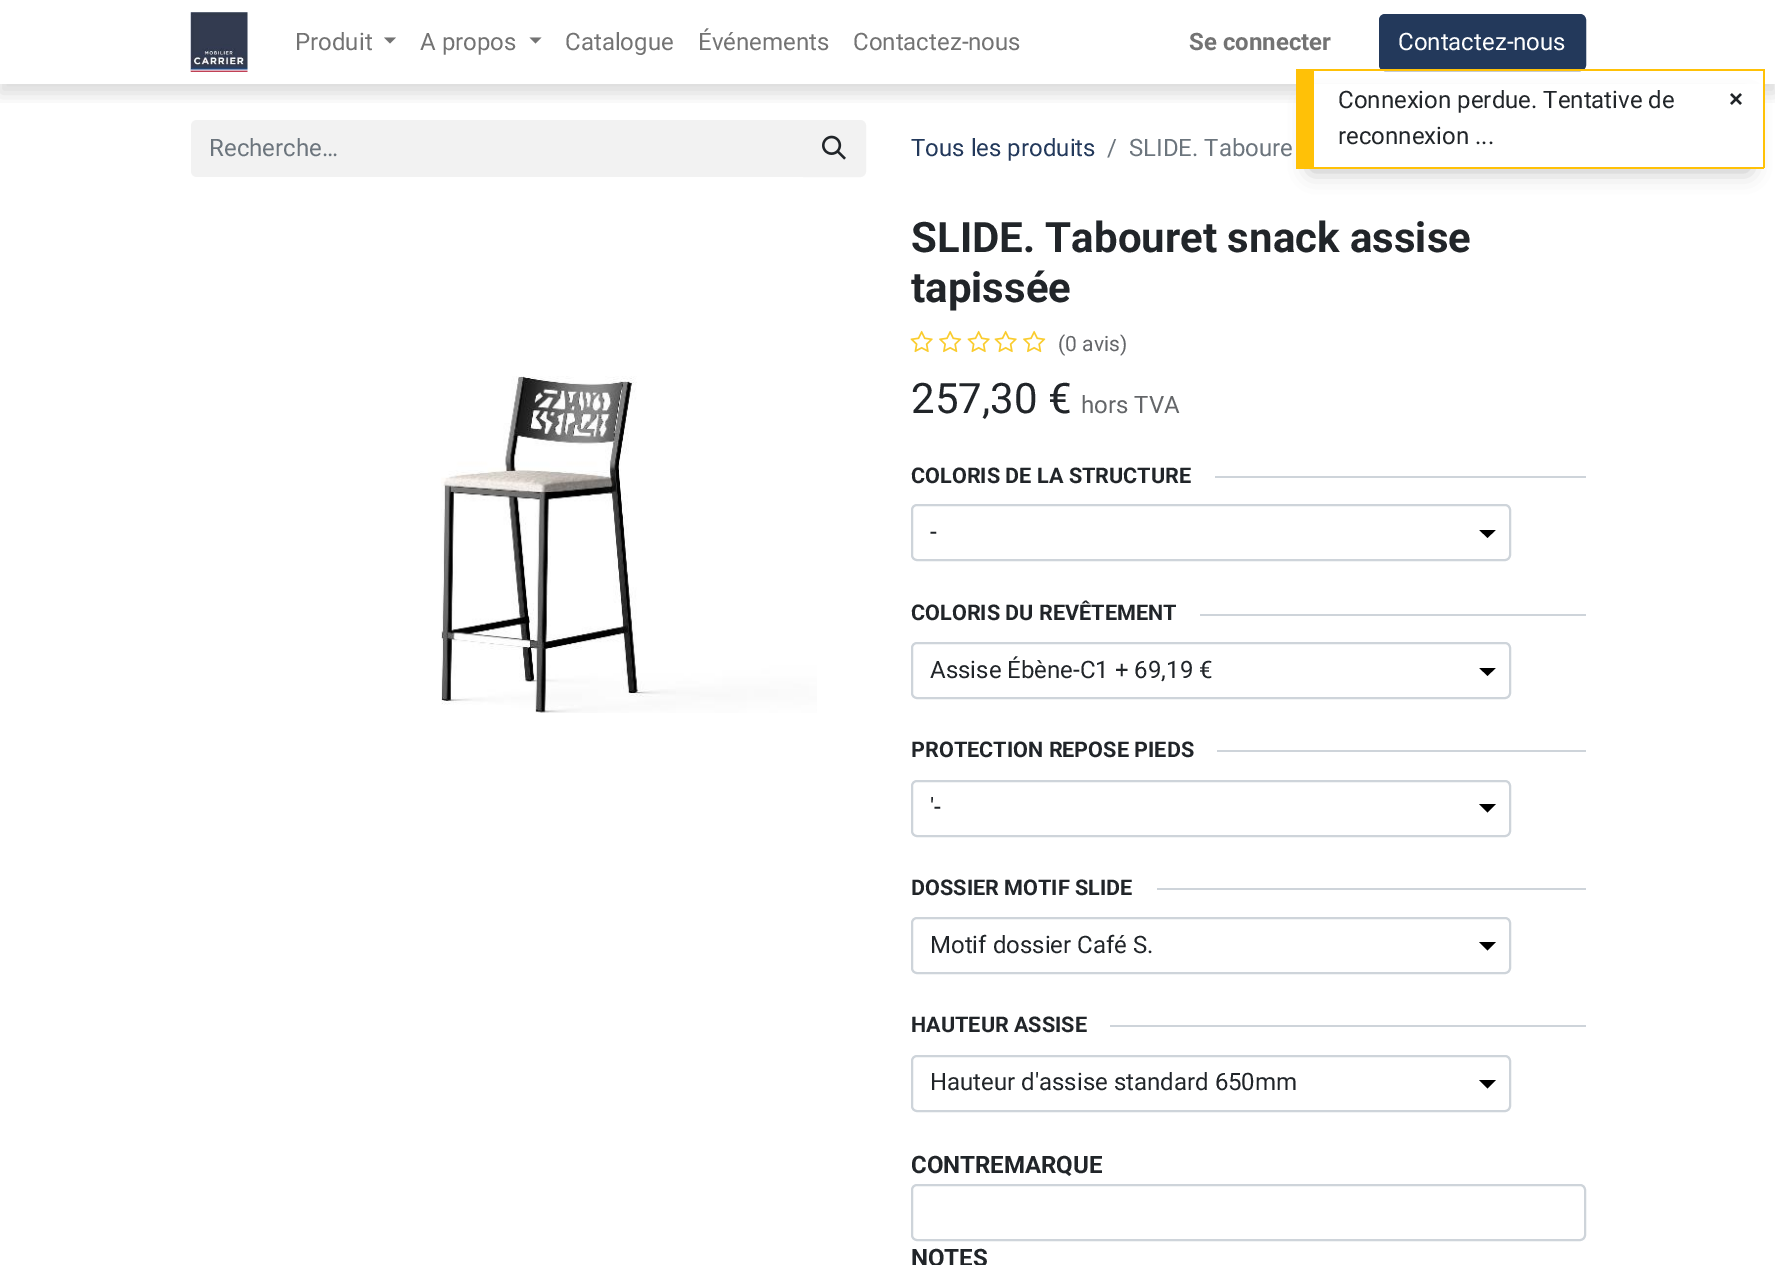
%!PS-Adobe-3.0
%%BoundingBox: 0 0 1775 1265
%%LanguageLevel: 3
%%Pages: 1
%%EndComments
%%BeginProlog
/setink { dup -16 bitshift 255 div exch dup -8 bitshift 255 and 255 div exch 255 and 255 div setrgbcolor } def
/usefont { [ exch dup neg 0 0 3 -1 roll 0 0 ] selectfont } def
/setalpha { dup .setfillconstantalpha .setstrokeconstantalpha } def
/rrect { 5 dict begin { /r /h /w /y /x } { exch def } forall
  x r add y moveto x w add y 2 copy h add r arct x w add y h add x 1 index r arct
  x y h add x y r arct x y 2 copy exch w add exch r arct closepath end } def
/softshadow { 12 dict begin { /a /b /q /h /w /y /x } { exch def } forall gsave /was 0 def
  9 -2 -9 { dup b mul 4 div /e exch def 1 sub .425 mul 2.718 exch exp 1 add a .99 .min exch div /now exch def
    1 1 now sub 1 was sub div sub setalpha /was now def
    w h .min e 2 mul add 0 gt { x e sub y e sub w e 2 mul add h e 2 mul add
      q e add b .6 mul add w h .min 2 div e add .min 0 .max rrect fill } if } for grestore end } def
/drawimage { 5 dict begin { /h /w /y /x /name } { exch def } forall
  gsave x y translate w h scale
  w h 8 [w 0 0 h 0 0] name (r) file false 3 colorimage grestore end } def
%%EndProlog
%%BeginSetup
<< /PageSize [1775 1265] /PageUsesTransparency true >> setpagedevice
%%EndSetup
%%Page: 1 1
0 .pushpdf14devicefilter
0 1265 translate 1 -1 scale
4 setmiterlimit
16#FFFFFF setink
0 0 1775 1265 rectfill
16#F2F2F2 setink
197 120 moveto 804 120 lineto 804 177 lineto 197 177 lineto 193.5 177 191 174.5 191 171 curveto 191 126 lineto 191 122.5 193.5 120 197 120 curveto closepath fill
804 121 moveto 860 121 lineto 863 121 865 123 865 126 curveto 865 171 lineto 865 174 863 176 860 176 curveto 804 176 lineto closepath gsave fill grestore
2 setlinewidth
stroke
gsave
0 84 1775 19 rectclip
16#000000 setink
0 9 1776 84 0 9 0.15 softshadow
grestore
(img1.raw) 190 12 58 60 drawimage
/Roboto-Regular 24 usefont
16#737373 setink
295 50 moveto (Produit) show
384 37.5 moveto 396 37.5 lineto 390 43.5 lineto closepath fill
420 50 moveto (A propos) show
529.5 37.5 moveto 541.5 37.5 lineto 535.5 43.5 lineto closepath fill
[
    [(Catalogue) 565 50]
    [(Événements) 698 50]
    [(Contactez-nous) 853 50]
] { aload pop moveto show } forall
/Roboto-Bold 24 usefont
1189 50 moveto (Se connecter) show
16#23395B setink
1380 15 205 55 5 rrect gsave fill grestore
stroke
/Roboto-Regular 24 usefont
16#FFFFFF setink
1398 50 moveto (Contactez-nous) show
16#6C757D setink
209 156 moveto (Recherche…) show
(img2.raw) 822 135 24 25 drawimage
16#23395B setink
911 156 moveto (Tous les produits) show
16#6C757D setink
1107 156 moveto (/) show
1129 156 moveto (SLIDE. Taboure) show
(img3.raw) 441 376 376 337 drawimage
/Roboto-Bold 42 usefont
16#212529 setink
911 252 moveto (SLIDE. Tabouret snack assise) show
911 302 moveto (tapissée) show
(img4.raw) 910 330 23 23 drawimage
(img5.raw) 939 330 23 23 drawimage
(img4.raw) 967 330 23 23 drawimage
(img4.raw) 994 330 23 23 drawimage
(img5.raw) 1023 330 23 23 drawimage
/Roboto-Regular 21 usefont
16#646669 setink
1058 351 moveto (\(0 avis\)) show
/Roboto-Regular 42 usefont
16#212529 setink
911 413 moveto (257,30 €) show
/Roboto-Regular 24 usefont
16#646669 setink
1081 413 moveto (hors TVA) show
/Roboto-Bold 21.6 usefont
16#212529 setink
911 483 moveto (COLORIS DE LA STRUCTURE) show
16#CED4DA setink
1215 476 371 2 rectfill
gsave
1479 530 30 18 rectclip
16#000000 setink
1479 529.5 moveto 1496 529.5 lineto 1487.5 538 lineto closepath fill
grestore
912 505 598 55 5 rrect stroke
/Roboto-Regular 24 usefont
16#212529 setink
930 540 moveto (-) show
/Roboto-Bold 21.6 usefont
911 620 moveto (COLORIS DU REVÊTEMENT) show
16#CED4DA setink
1200 614 386 2 rectfill
gsave
1479 668 30 16 rectclip
16#000000 setink
1479 667.5 moveto 1496 667.5 lineto 1487.5 676 lineto closepath fill
grestore
912 643 598 55 5 rrect stroke
/Roboto-Regular 24 usefont
16#212529 setink
930 678 moveto (Assise Ébène-C1 + 69,19 €) show
/Roboto-Bold 21.6 usefont
911 757 moveto (PROTECTION REPOSE PIEDS) show
16#CED4DA setink
1217 750 369 2 rectfill
16#000000 setink
1479 804 moveto 1496 804 lineto 1487.5 812.5 lineto closepath fill
16#CED4DA setink
912 781 598 55 5 rrect stroke
/Roboto-Regular 24 usefont
16#212529 setink
930 815 moveto ('-) show
/Roboto-Bold 21.6 usefont
911 895 moveto (DOSSIER MOTIF SLIDE) show
16#CED4DA setink
1157 888 429 2 rectfill
16#000000 setink
1479 942 moveto 1496 942 lineto 1487.5 950.5 lineto closepath fill
16#CED4DA setink
912 918 598 55 5 rrect stroke
/Roboto-Regular 24 usefont
16#212529 setink
930 953 moveto (Motif dossier Café S.) show
/Roboto-Bold 21.6 usefont
911 1032 moveto (HAUTEUR ASSISE) show
16#CED4DA setink
1110 1025 476 2 rectfill
16#000000 setink
1479 1080 moveto 1496 1080 lineto 1487.5 1088.5 lineto closepath fill
16#CED4DA setink
912 1056 598 55 5 rrect stroke
/Roboto-Regular 24 usefont
16#212529 setink
930 1090 moveto (Hauteur d'assise standard 650mm) show
/Roboto-Bold 24 usefont
911 1173 moveto (CONTREMARQUE) show
16#CED4DA setink
912 1185 673 55 5 rrect stroke
16#212529 setink
911 1266 moveto (NOTES) show
16#000000 setink
1311 102 438 69 0 10.5 0.25 softshadow
[
    [1314 84 449 83 16#FFFFFF]
    [1314 69 450 2 16#FFC107]
    [1763 69 2 99 16#FFC107]
    [1296 167 468 2 16#FFC107]
    [1296 69 18 98 16#FFC107]
] { aload pop setink rectfill } forall
/Roboto-Regular 24 usefont
16#212529 setink
1338 108 moveto (Connexion perdue. Tentative de) show
1338 144 moveto (reconnexion ...) show
/LiberationSans-Bold 24 usefont
1729 107 moveto (×) show
.poppdf14devicefilter showpage
%%EOF
